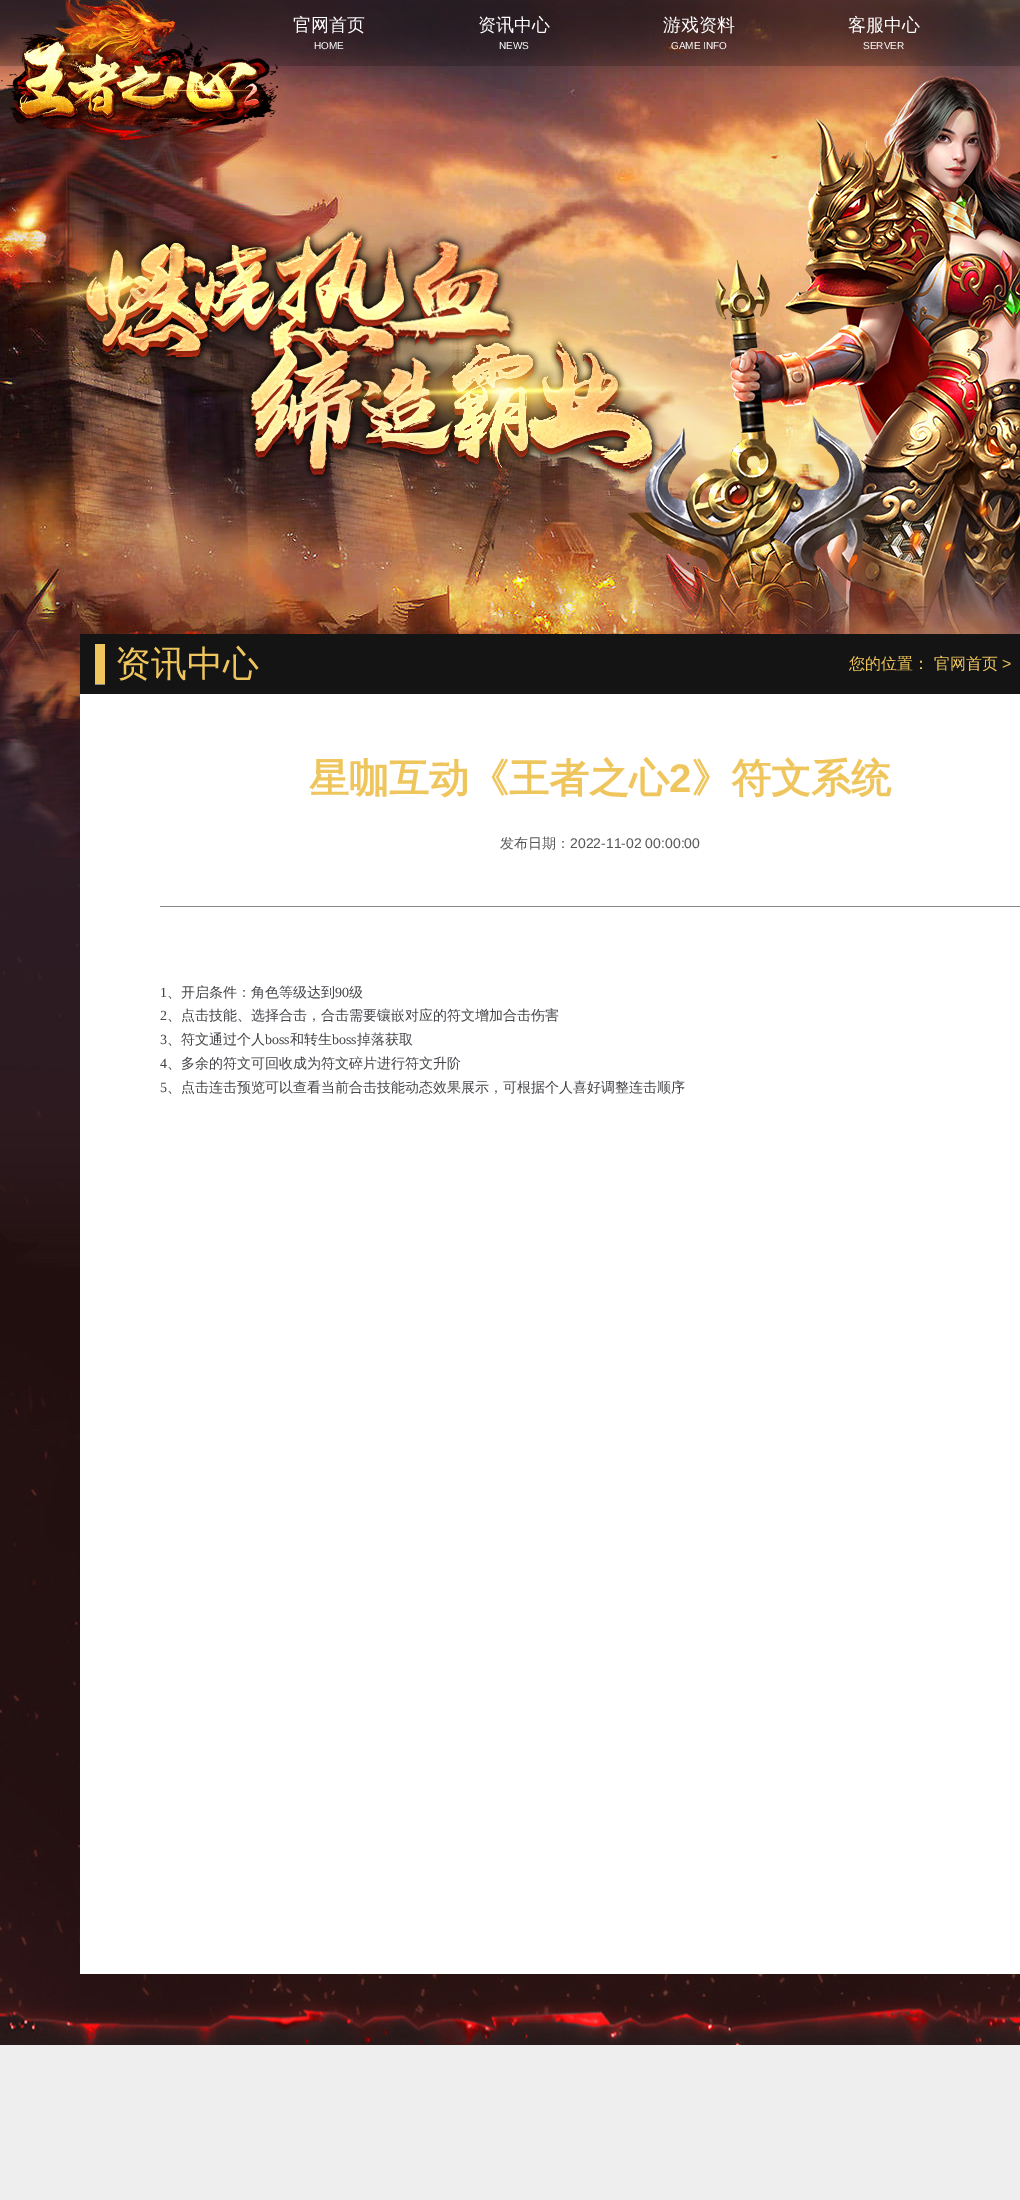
%!PS-Adobe-3.0
%%BoundingBox: 0 0 1020 2200
%%LanguageLevel: 3
%%Pages: 1
%%EndComments
%%BeginProlog
/setink { dup -16 bitshift 255 div exch dup -8 bitshift 255 and 255 div exch 255 and 255 div setrgbcolor } def
/usefont { [ exch dup neg 0 0 3 -1 roll 0 0 ] selectfont } def
/drawimage { 5 dict begin { /h /w /y /x /name } { exch def } forall
  gsave x y translate w h scale
  w h 8 [w 0 0 h 0 0] name (r) file false 3 colorimage grestore end } def
%%EndProlog
%%BeginSetup
<< /PageSize [1020 2200] >> setpagedevice
%%EndSetup
%%Page: 1 1
0 2200 translate 1 -1 scale
4 setmiterlimit
16#EEEEEE setink
0 0 1020 2200 rectfill
(img1.raw) 0 0 1020 2045 drawimage
(img2.raw) 0 0 285 140 drawimage
/WenQuanYiZenHei-Medium 18 usefont
16#FFFFFF setink
293 31 moveto (官网首页) show
/LiberationSans-Regular 10 usefont
314 49 moveto (HOME) show
/WenQuanYiZenHei-Medium 18 usefont
478 31 moveto (资讯中心) show
/LiberationSans-Regular 10 usefont
499 49 moveto (NEWS) show
/WenQuanYiZenHei-Medium 18 usefont
663 31 moveto (游戏资料) show
/LiberationSans-Regular 10 usefont
671 49 moveto (GAME INFO) show
/WenQuanYiZenHei-Medium 18 usefont
848 31 moveto (客服中心) show
/LiberationSans-Regular 10 usefont
863 49 moveto (SERVER) show
[
    [80 694 940 1280 16#FFFFFF]
    [80 634 940 60 16#151414]
    [95 644 10 40 16#EFC65E]
    [95 684 10 1 16#888888]
] { aload pop setink rectfill } forall
/WenQuanYiZenHei-Medium 36 usefont
16#EFC65E setink
115 676 moveto (资讯中心) show
/WenQuanYiZenHei-Medium 16 usefont
849 669 moveto (您的位置：) show
934 669 moveto (官网首页) show
/LiberationSans-Regular 16 usefont
1002 669 moveto (>) show
/WenQuanYiZenHei-Bold 40 usefont
309 792 moveto (星咖互动《王者之心) show
/LiberationSans-Bold 40 usefont
669 792 moveto (2) show
/WenQuanYiZenHei-Bold 40 usefont
691 792 moveto (》符文系统) show
/WenQuanYiZenHei-Medium 14 usefont
16#565656 setink
500 848 moveto (发布日期：) show
/LiberationSans-Regular 14 usefont
570 848 moveto (2022-11-02 00:00:00) show
16#888888 setink
160 906 860 1 rectfill
/LiberationSerif-Regular 14 usefont
16#434348 setink
160 997 moveto (1) show
/WenQuanYiZenHei-Medium 14 usefont
167 997 moveto (、开启条件：角色等级达到) show
/LiberationSerif-Regular 14 usefont
335 997 moveto (90) show
/WenQuanYiZenHei-Medium 14 usefont
349 997 moveto (级) show
/LiberationSerif-Regular 14 usefont
160 1020 moveto (2) show
/WenQuanYiZenHei-Medium 14 usefont
167 1020 moveto (、点击技能、选择合击，合击需要镶嵌对应的符文增加合击伤害) show
/LiberationSerif-Regular 14 usefont
160 1044 moveto (3) show
/WenQuanYiZenHei-Medium 14 usefont
167 1044 moveto (、符文通过个人) show
/LiberationSerif-Regular 14 usefont
265 1044 moveto (boss) show
/WenQuanYiZenHei-Medium 14 usefont
290 1044 moveto (和转生) show
/LiberationSerif-Regular 14 usefont
332 1044 moveto (boss) show
/WenQuanYiZenHei-Medium 14 usefont
357 1044 moveto (掉落获取) show
/LiberationSerif-Regular 14 usefont
160 1068 moveto (4) show
/WenQuanYiZenHei-Medium 14 usefont
167 1068 moveto (、多余的符文可回收成为符文碎片进行符文升阶) show
/LiberationSerif-Regular 14 usefont
160 1092 moveto (5) show
/WenQuanYiZenHei-Medium 14 usefont
167 1092 moveto (、点击连击预览可以查看当前合击技能动态效果展示，可根据个人喜好调整连击顺序) show
showpage
%%EOF
